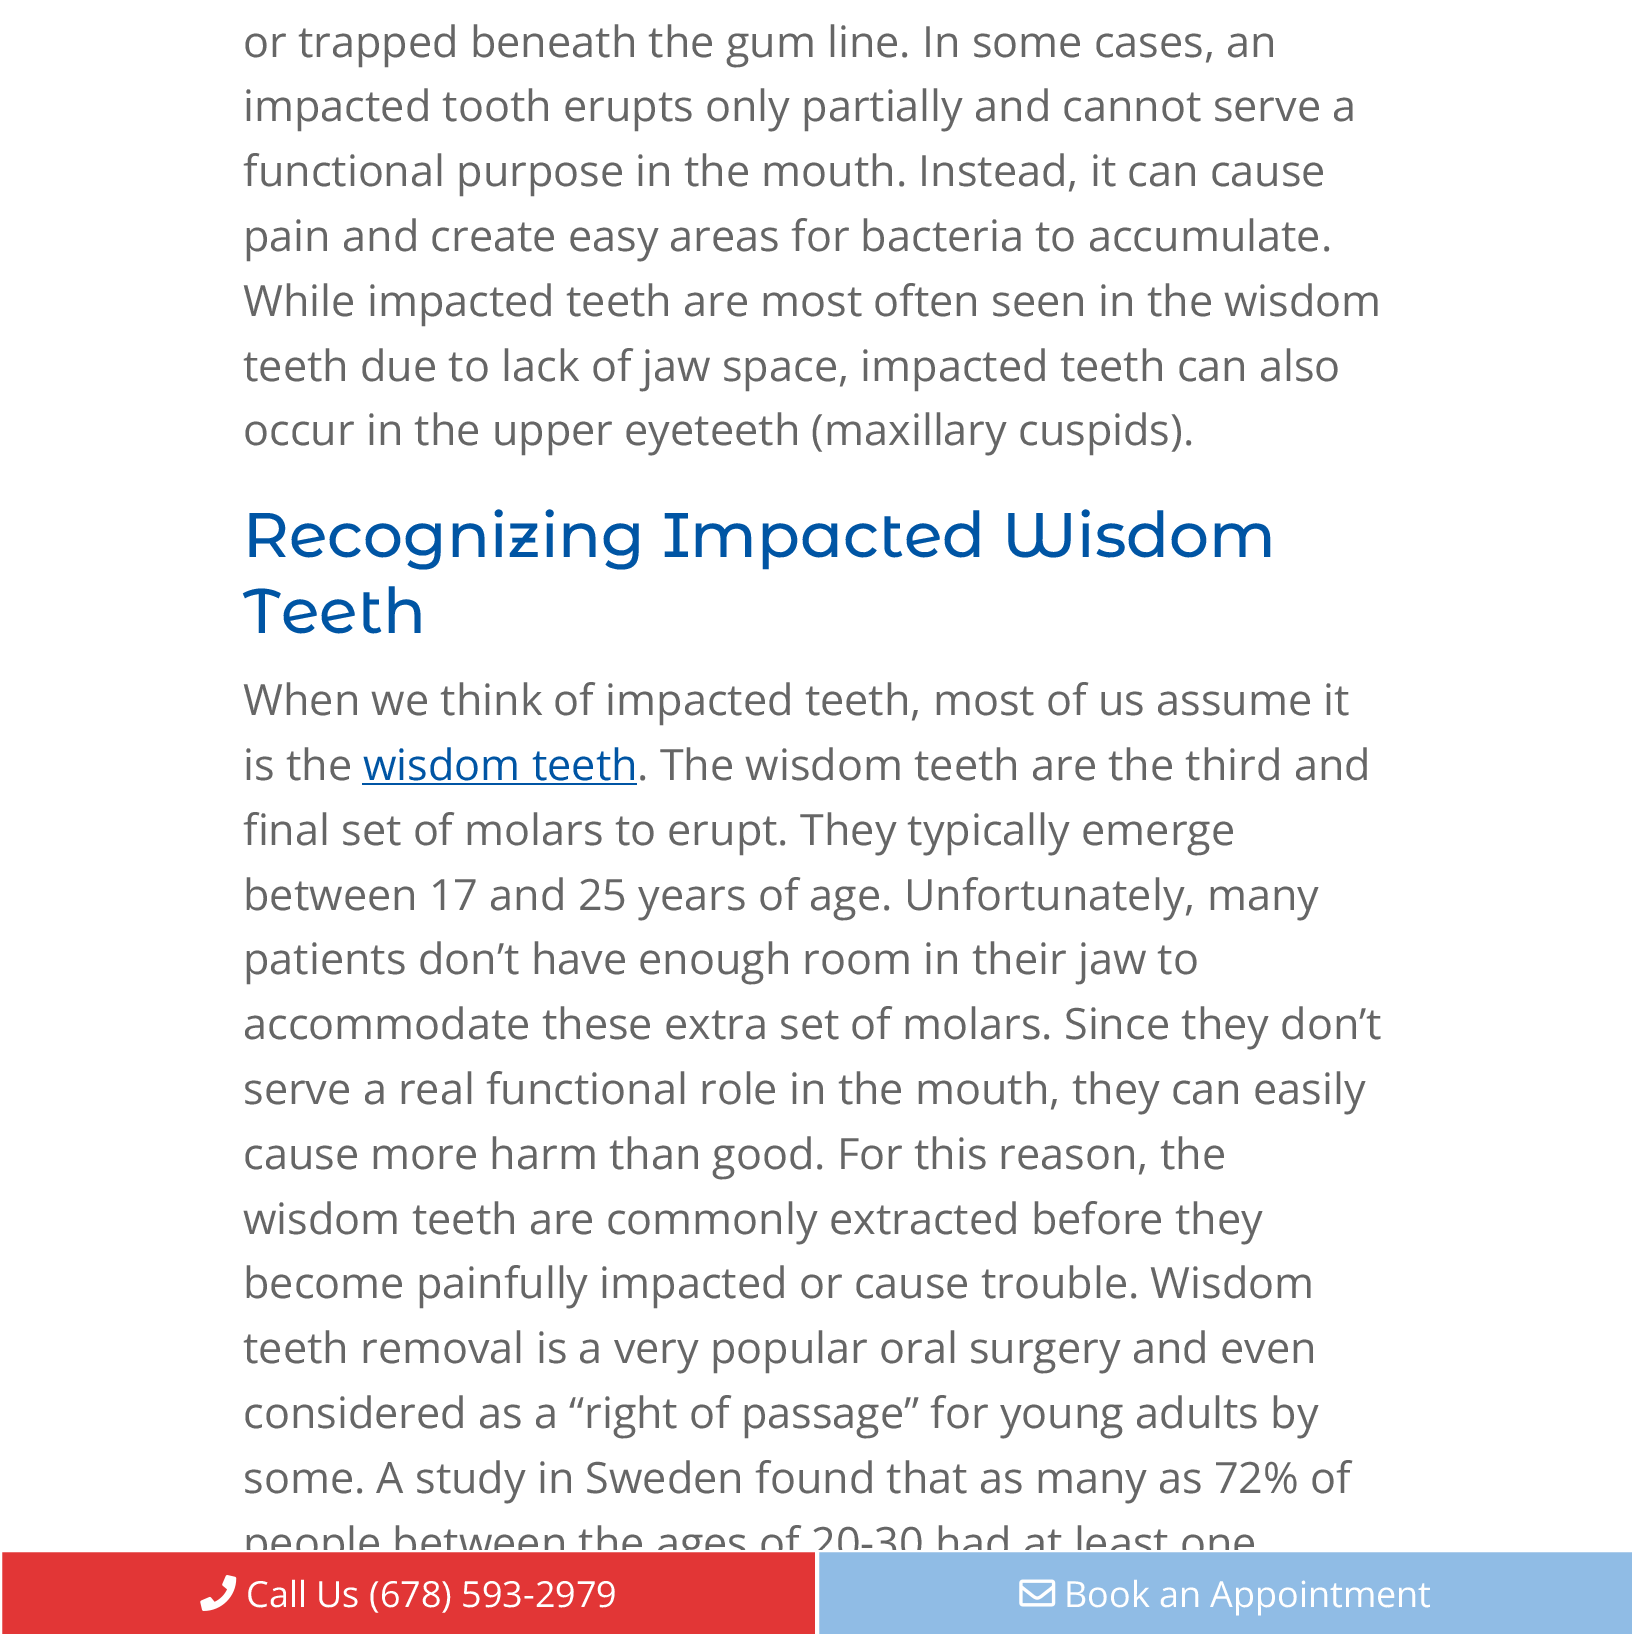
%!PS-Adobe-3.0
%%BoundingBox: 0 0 1632 1634
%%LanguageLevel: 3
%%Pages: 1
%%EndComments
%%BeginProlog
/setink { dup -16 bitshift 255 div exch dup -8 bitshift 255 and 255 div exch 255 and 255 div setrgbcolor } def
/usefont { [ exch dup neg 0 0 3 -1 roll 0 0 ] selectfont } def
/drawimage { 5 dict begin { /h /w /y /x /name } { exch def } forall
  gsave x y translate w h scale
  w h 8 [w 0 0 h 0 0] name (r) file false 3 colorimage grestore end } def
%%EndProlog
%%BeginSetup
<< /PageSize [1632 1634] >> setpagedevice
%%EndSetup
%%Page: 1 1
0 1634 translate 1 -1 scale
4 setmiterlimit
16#FFFFFF setink
0 0 1632 1634 rectfill
/OpenSans-Regular 43.2 usefont
16#666666 setink
[
    [(or trapped beneath the gum line. In some cases, an) 243 57]
    [(impacted tooth erupts only partially and cannot serve a) 243 121]
    [(functional purpose in the mouth. Instead, it can cause) 243 186]
    [(pain and create easy areas for bacteria to accumulate.) 243 251]
    [(While impacted teeth are most often seen in the wisdom) 243 316]
    [(teeth due to lack of jaw space, impacted teeth can also) 243 381]
    [(occur in the upper eyeteeth \(maxillary cuspids\).) 243 445]
] { aload pop moveto show } forall
/MontserratAlternates-Medium 63 usefont
16#0055A4 setink
243 557 moveto (Recognizing Impacted Wisdom) show
243 633 moveto (Teeth) show
/OpenSans-Regular 43.2 usefont
16#666666 setink
243 715 moveto (When we think of impacted teeth, most of us assume it) show
243 780 moveto (is the) show
16#0055A4 setink
363 780 moveto (wisdom teeth) show
362 783 275 2 rectfill
16#666666 setink
[
    [(. The wisdom teeth are the third and) 637 780]
    [(final set of molars to erupt. They typically emerge) 243 845]
    [(between 17 and 25 years of age. Unfortunately, many) 243 910]
    [(patients don’t have enough room in their jaw to) 243 974]
    [(accommodate these extra set of molars. Since they don’t) 243 1039]
    [(serve a real functional role in the mouth, they can easily) 243 1104]
    [(cause more harm than good. For this reason, the) 243 1169]
    [(wisdom teeth are commonly extracted before they) 243 1234]
    [(become painfully impacted or cause trouble. Wisdom) 243 1298]
    [(teeth removal is a very popular oral surgery and even) 243 1363]
    [(considered as a “right of passage” for young adults by) 243 1428]
    [(some. A study in Sweden found that as many as 72% of) 243 1493]
    [(people between the ages of 20-30 had at least one) 243 1558]
] { aload pop moveto show } forall
16#E23636 setink
1 1551 moveto 816 1551 lineto 816 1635 lineto 1 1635 lineto closepath gsave fill grestore
16#FFFFFF setink
2 setlinewidth
stroke
(img1.raw) 200 1575 37 36 drawimage
/OpenSans-Regular 36 usefont
246 1607 moveto (Call Us \(678\) 593-2979) show
16#90BCE5 setink
818 1551 moveto 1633 1551 lineto 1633 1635 lineto 818 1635 lineto closepath gsave fill grestore
16#FFFFFF setink
stroke
(img2.raw) 1019 1579 37 28 drawimage
1064 1607 moveto (Book an Appointment) show
showpage
%%EOF
